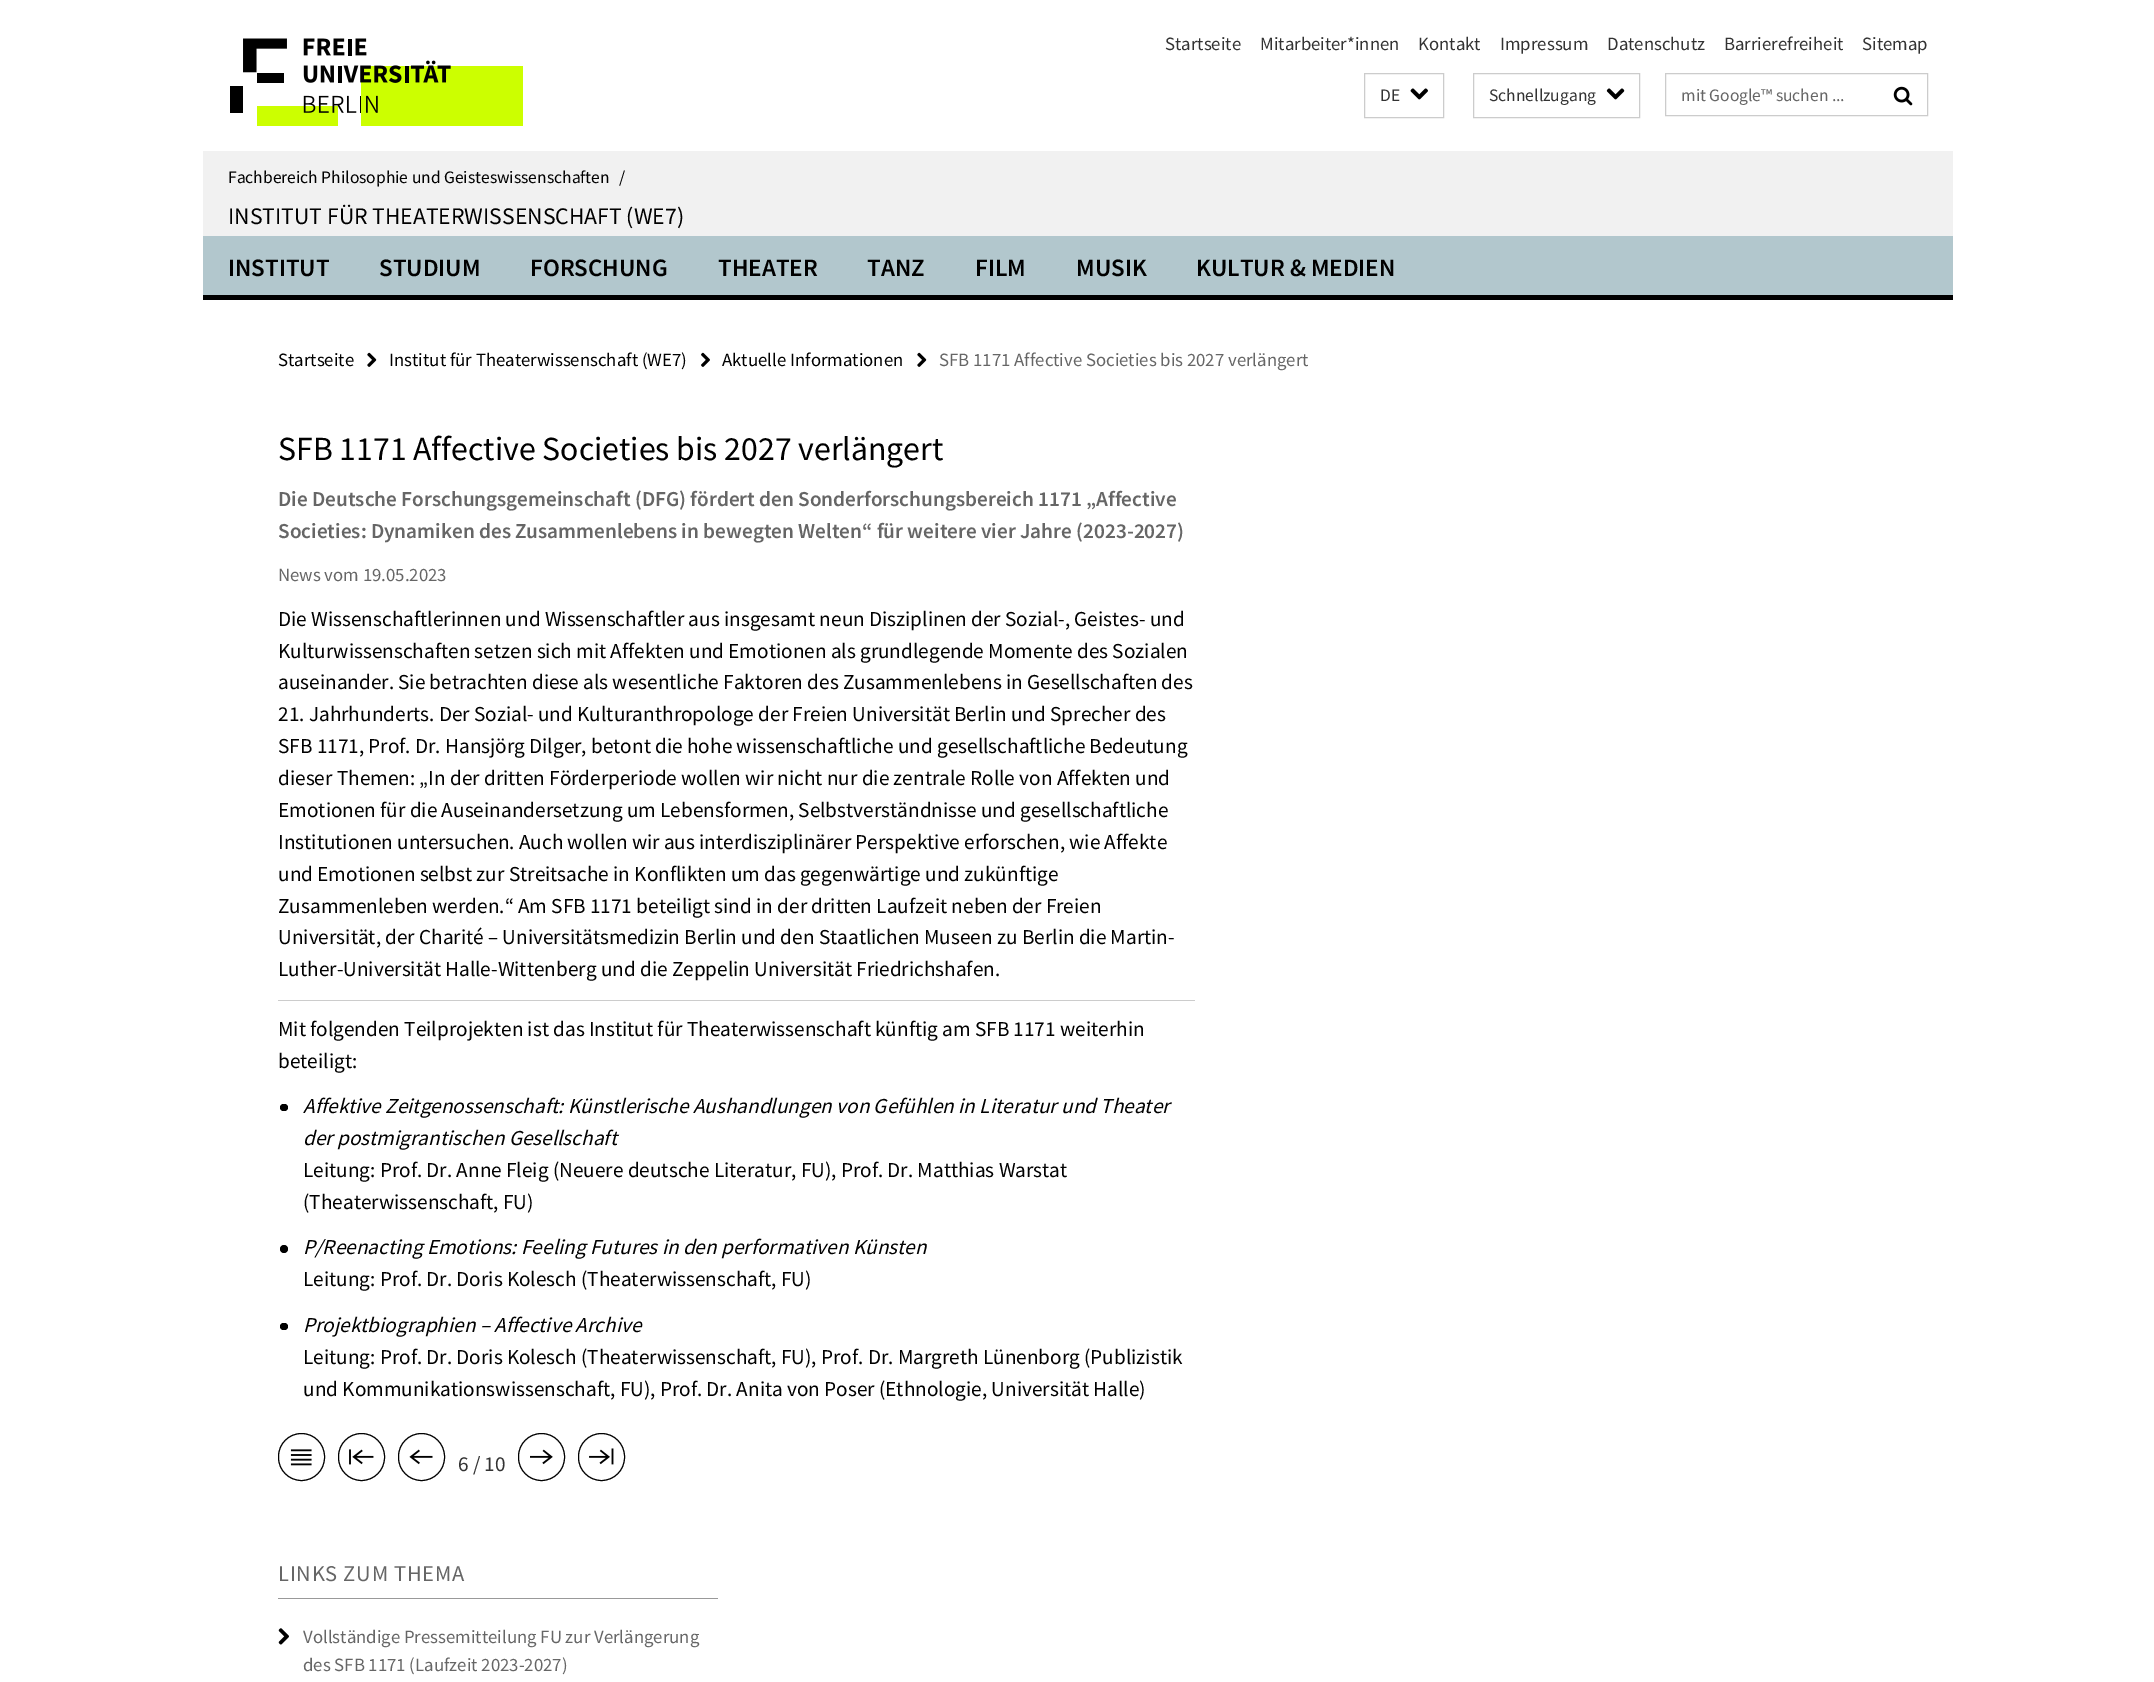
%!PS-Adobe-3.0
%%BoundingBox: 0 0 2154 1682
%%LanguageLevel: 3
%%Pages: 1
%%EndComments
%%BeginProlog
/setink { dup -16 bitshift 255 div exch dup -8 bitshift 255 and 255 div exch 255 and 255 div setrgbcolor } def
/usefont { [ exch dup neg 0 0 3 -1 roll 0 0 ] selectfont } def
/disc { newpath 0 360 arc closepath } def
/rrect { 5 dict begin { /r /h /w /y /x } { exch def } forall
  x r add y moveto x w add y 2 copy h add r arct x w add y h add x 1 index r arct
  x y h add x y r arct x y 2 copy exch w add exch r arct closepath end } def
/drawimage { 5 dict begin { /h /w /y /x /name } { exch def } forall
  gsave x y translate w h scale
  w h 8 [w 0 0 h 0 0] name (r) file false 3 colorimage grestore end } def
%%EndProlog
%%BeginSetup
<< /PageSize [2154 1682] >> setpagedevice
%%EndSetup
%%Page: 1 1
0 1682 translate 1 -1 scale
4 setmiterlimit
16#FFFFFF setink
0 0 2154 1682 rectfill
(img1.raw) 230 38 293 88 drawimage
/SourceSansPro-Regular 18.75 usefont
16#333333 setink
[
    [(Startseite) 1165 50]
    [(Mitarbeiter*innen) 1260 50]
    [(Kontakt) 1418 50]
    [(Impressum) 1500 50]
    [(Datenschutz) 1607 50]
    [(Barrierefreiheit) 1724 50]
    [(Sitemap) 1862 50]
] { aload pop moveto show } forall
16#CCCCCC setink
1364.5 73.5 79 44 rectstroke
/SourceSansPro-Regular 17.5 usefont
16#333333 setink
1380 101 moveto (DE) show
(img2.raw) 1410 88 18 12 drawimage
16#CCCCCC setink
1473.5 73.5 166 44 rectstroke
16#333333 setink
1489 101 moveto (Schnellzugang) show
(img3.raw) 1606 88 19 12 drawimage
16#CCCCCC setink
1665.5 73.5 262 42 rectstroke
16#666666 setink
1681 101 moveto (mit Google™ suchen ...) show
(img4.raw) 1893 86 20 20 drawimage
16#F1F1F1 setink
203 151 1750 85 rectfill
16#000000 setink
228 183 moveto (Fachbereich Philosophie und Geisteswissenschaften) show
619 183 moveto (/) show
/SourceSansPro-Regular 23.75 usefont
228 224 moveto (INSTITUT FÜR THEATERWISSENSCHAFT \(WE7\)) show
16#B2C7CD setink
203 236 1750 59 rectfill
16#000000 setink
203 295 1750 5 rectfill
/SourceSansPro-SemiBold 25 usefont
[
    [(INSTITUT) 228 276]
    [(STUDIUM) 379 276]
    [(FORSCHUNG) 530 276]
    [(THEATER) 718 276]
    [(TANZ) 867 276]
    [(FILM) 975 276]
    [(MUSIK) 1076 276]
    [(KULTUR & MEDIEN) 1196 276]
] { aload pop moveto show } forall
/SourceSansPro-Regular 18.75 usefont
278 366 moveto (Startseite) show
(img5.raw) 367 352 10 15 drawimage
389 366 moveto (Institut für Theaterwissenschaft \(WE7\)) show
(img6.raw) 701 352 9 15 drawimage
722 366 moveto (Aktuelle Informationen) show
(img5.raw) 917 352 10 15 drawimage
16#666666 setink
939 366 moveto (SFB 1171 Affective Societies bis 2027 verlängert) show
/SourceSansPro-Regular 33.75 usefont
16#000000 setink
278 460 moveto (SFB 1171 Affective Societies bis 2027 verlängert) show
/SourceSansPro-SemiBold 21.25 usefont
16#666666 setink
278 506 moveto (Die Deutsche Forschungsgemeinschaft \(DFG\) fördert den Sonderforschungsbereich 1171 „Affective) show
278 538 moveto (Societies: Dynamiken des Zusammenlebens in bewegten Welten“ für weitere vier Jahre \(2023-2027\)) show
/SourceSansPro-Regular 18.75 usefont
278 581 moveto (News vom 19.05.2023) show
/SourceSansPro-Regular 21.25 usefont
16#000000 setink
[
    [(Die Wissenschaftlerinnen und Wissenschaftler aus insgesamt neun Disziplinen der Sozial-, Geistes- und) 278 626]
    [(Kulturwissenschaften setzen sich mit Affekten und Emotionen als grundlegende Momente des Sozialen) 278 658]
    [(auseinander. Sie betrachten diese als wesentliche Faktoren des Zusammenlebens in Gesellschaften des) 278 689]
    [(21. Jahrhunderts. Der Sozial- und Kulturanthropologe der Freien Universität Berlin und Sprecher des) 278 721]
    [(SFB 1171, Prof. Dr. Hansjörg Dilger, betont die hohe wissenschaftliche und gesellschaftliche Bedeutung) 278 753]
    [(dieser Themen: „In der dritten Förderperiode wollen wir nicht nur die zentrale Rolle von Affekten und) 278 785]
    [(Emotionen für die Auseinandersetzung um Lebensformen, Selbstverständnisse und gesellschaftliche) 278 817]
    [(Institutionen untersuchen. Auch wollen wir aus interdisziplinärer Perspektive erforschen, wie Affekte) 278 849]
    [(und Emotionen selbst zur Streitsache in Konflikten um das gegenwärtige und zukünftige) 278 881]
    [(Zusammenleben werden.“ Am SFB 1171 beteiligt sind in der dritten Laufzeit neben der Freien) 278 913]
    [(Universität, der Charité – Universitätsmedizin Berlin und den Staatlichen Museen zu Berlin die Martin-) 278 944]
    [(Luther-Universität Halle-Wittenberg und die Zeppelin Universität Friedrichshafen.) 278 976]
] { aload pop moveto show } forall
16#CCCCCC setink
278 1000 917 1 rectfill
16#000000 setink
278 1036 moveto (Mit folgenden Teilprojekten ist das Institut für Theaterwissenschaft künftig am SFB 1171 weiterhin) show
278 1068 moveto (beteiligt:) show
280 1104 8 7 3.5 rrect fill
/SourceSansPro-Italic 21.25 usefont
303 1113 moveto (Affektive Zeitgenossenschaft: Künstlerische Aushandlungen von Gefühlen in Literatur und Theater) show
303 1145 moveto (der postmigrantischen Gesellschaft) show
/SourceSansPro-Regular 21.25 usefont
303 1177 moveto (Leitung: Prof. Dr. Anne Fleig \(Neuere deutsche Literatur, FU\), Prof. Dr. Matthias Warstat) show
303 1209 moveto (\(Theaterwissenschaft, FU\)) show
284 1249 4 disc fill
/SourceSansPro-Italic 21.25 usefont
303 1254 moveto (P/Reenacting Emotions: Feeling Futures in den performativen Künsten) show
/SourceSansPro-Regular 21.25 usefont
303 1286 moveto (Leitung: Prof. Dr. Doris Kolesch \(Theaterwissenschaft, FU\)) show
280 1323 8 7 3.5 rrect fill
/SourceSansPro-Italic 21.25 usefont
303 1332 moveto (Projektbiographien – Affective Archive) show
/SourceSansPro-Regular 21.25 usefont
303 1364 moveto (Leitung: Prof. Dr. Doris Kolesch \(Theaterwissenschaft, FU\), Prof. Dr. Margreth Lünenborg \(Publizistik) show
303 1396 moveto (und Kommunikationswissenschaft, FU\), Prof. Dr. Anita von Poser \(Ethnologie, Universität Halle\)) show
278.5 1433.5 46 47 23 rrect stroke
(img7.raw) 290 1449 22 17 drawimage
338.5 1433.5 46 47 23 rrect stroke
(img8.raw) 349 1449 25 16 drawimage
398.5 1433.5 46 47 23 rrect stroke
(img9.raw) 409 1449 24 16 drawimage
16#333333 setink
458 1471 moveto (6 / 10) show
16#000000 setink
518.5 1433.5 46 47 23 rrect stroke
(img10.raw) 530 1449 23 16 drawimage
578.5 1433.5 46 47 23 rrect stroke
(img11.raw) 589 1448 25 17 drawimage
16#999999 setink
278 1598 440 1 rectfill
/SourceSansPro-Regular 22.5 usefont
16#666666 setink
278 1581 moveto 0.75 0 (LINKS ZUM THEMA) ashow
(img12.raw) 278 1628 11 17 drawimage
/SourceSansPro-Regular 18.75 usefont
303 1643 moveto (Vollständige Pressemitteilung FU zur Verlängerung) show
303 1671 moveto (des SFB 1171 \(Laufzeit 2023-2027\)) show
showpage
%%EOF
